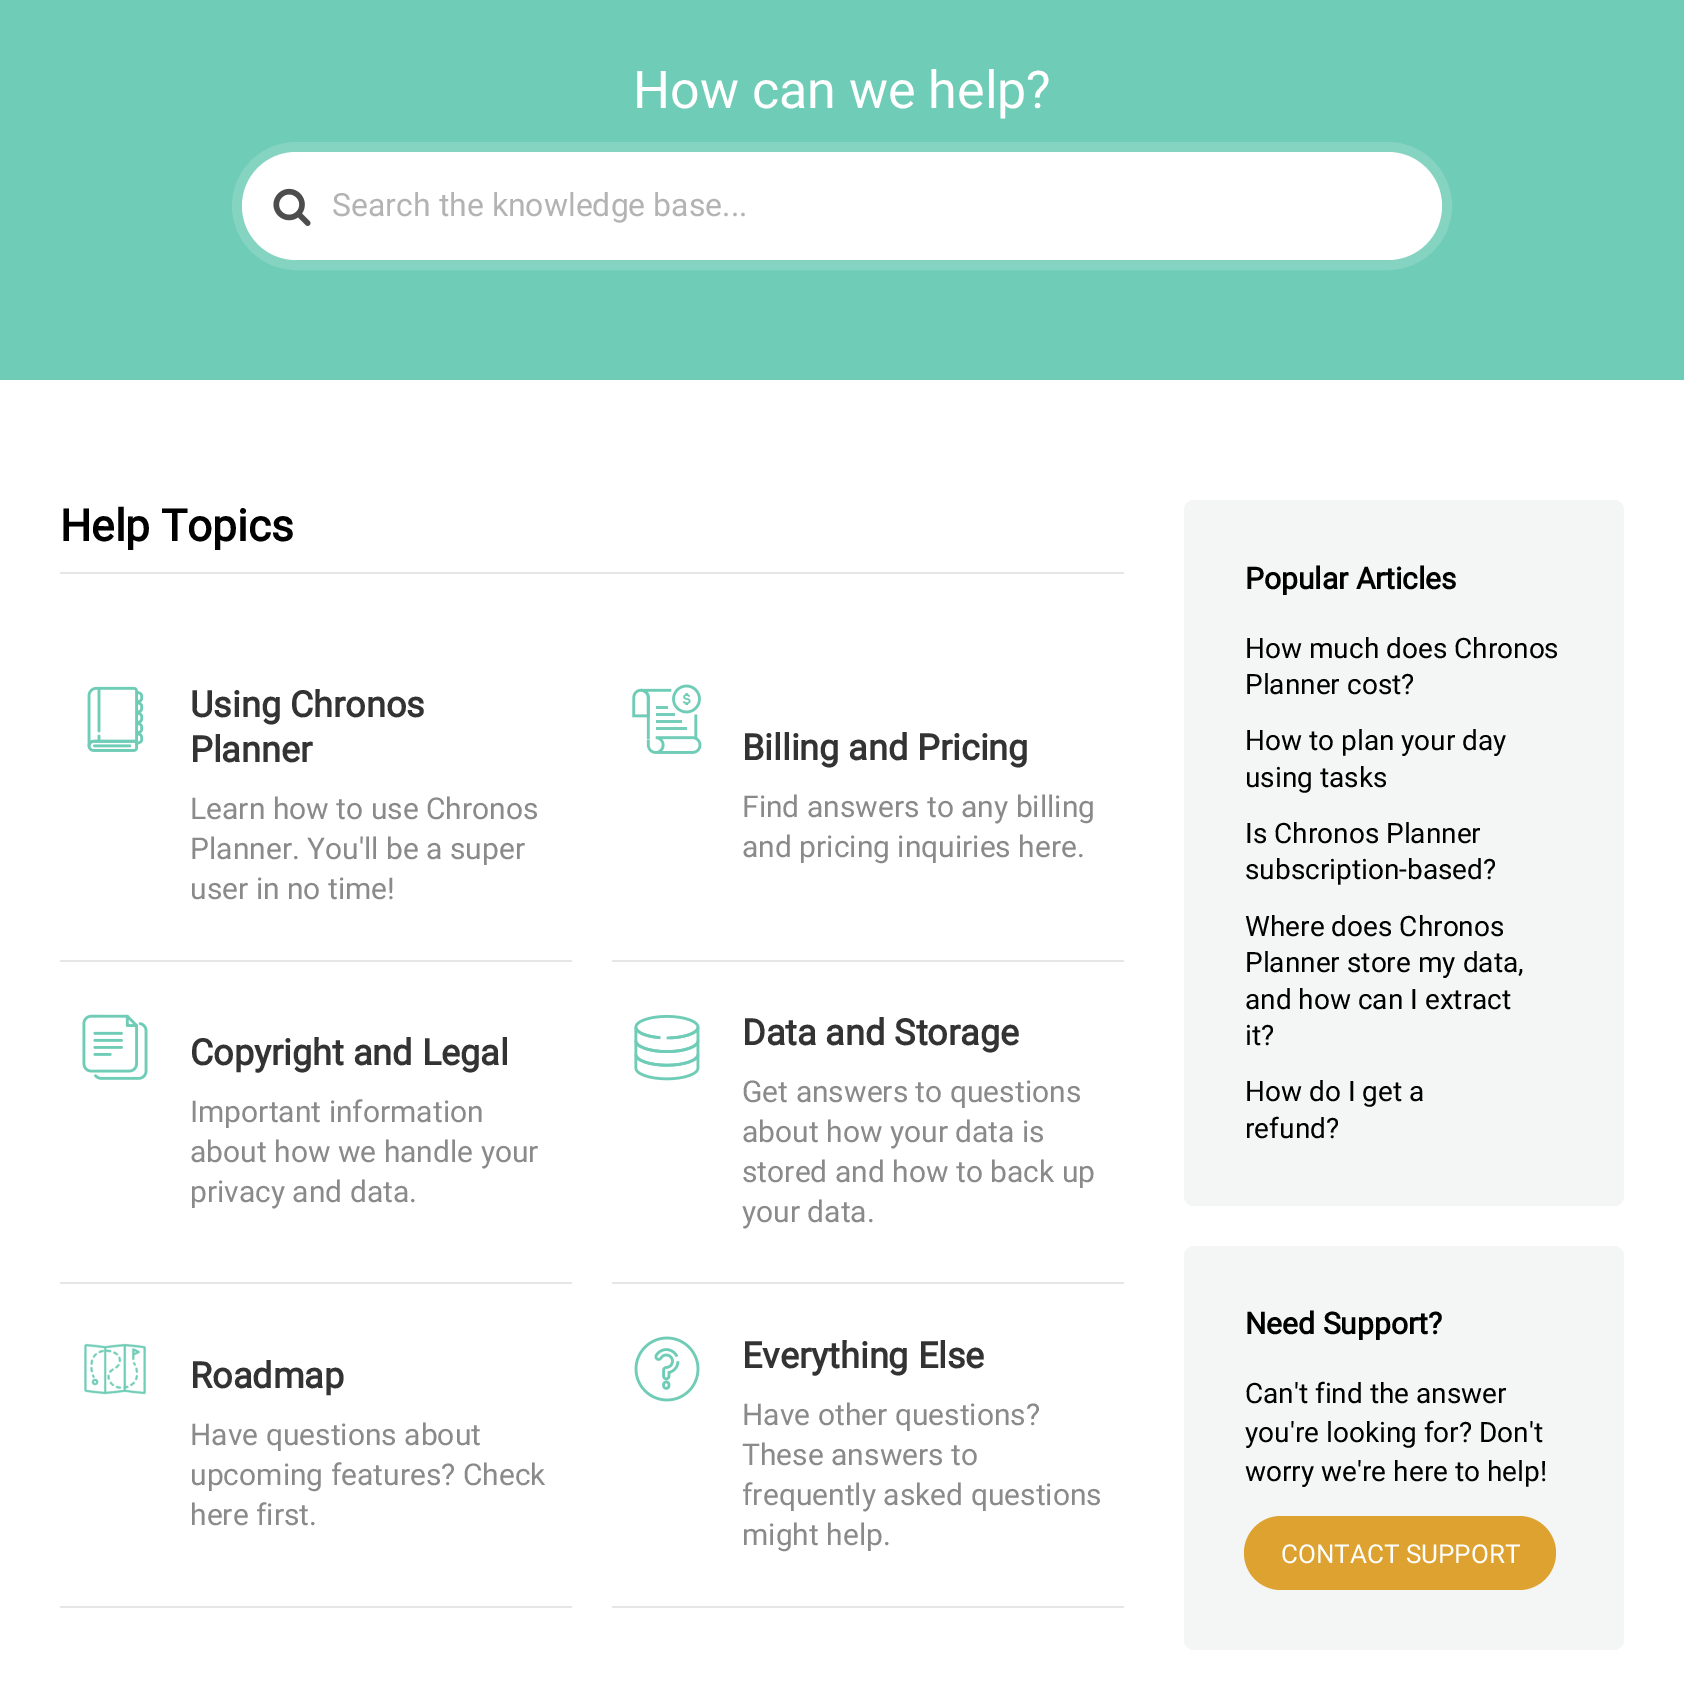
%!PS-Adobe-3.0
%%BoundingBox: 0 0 1684 1691
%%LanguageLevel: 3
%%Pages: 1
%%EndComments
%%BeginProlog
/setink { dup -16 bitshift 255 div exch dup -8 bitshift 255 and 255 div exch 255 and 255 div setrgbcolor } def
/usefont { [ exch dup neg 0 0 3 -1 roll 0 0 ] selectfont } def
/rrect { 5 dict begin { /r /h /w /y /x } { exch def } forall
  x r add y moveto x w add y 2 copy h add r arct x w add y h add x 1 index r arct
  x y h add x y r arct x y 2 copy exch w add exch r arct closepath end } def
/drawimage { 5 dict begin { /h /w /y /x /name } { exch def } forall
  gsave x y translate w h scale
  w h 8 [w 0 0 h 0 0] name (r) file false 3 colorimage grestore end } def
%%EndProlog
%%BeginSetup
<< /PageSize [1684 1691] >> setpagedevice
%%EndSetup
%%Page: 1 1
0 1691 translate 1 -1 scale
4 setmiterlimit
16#FFFFFF setink
0 0 1684 1691 rectfill
16#6FCCB6 setink
0 0 1684 380 rectfill
/Roboto-Regular 52 usefont
16#FFFFFF setink
633 108 moveto (How can we help?) show
16#85D4C1 setink
10 setlinewidth
237 147 1210 118 59 rrect stroke
16#FFFFFF setink
242 152 1200 108 54 rrect fill
(img1.raw) 273 188 38 38 drawimage
/Roboto-Regular 32 usefont
16#B3B3B3 setink
332 216 moveto (Search the knowledge base...) show
16#E6E6E6 setink
60 572 1064 2 rectfill
/Roboto-Bold 44 usefont
16#000000 setink
60 541 moveto (Help Topics) show
16#E6E6E6 setink
60 960 512 2 rectfill
(img2.raw) 87 686 57 66 drawimage
/Roboto-Bold 36 usefont
16#333333 setink
190 717 moveto (Using Chronos) show
190 762 moveto (Planner) show
/Roboto-Regular 30 usefont
16#8A8A8A setink
[
    [(Learn how to use Chronos) 190 819]
    [(Planner. You'll be a super) 190 859]
    [(user in no time!) 190 899]
] { aload pop moveto show } forall
16#E6E6E6 setink
612 960 512 2 rectfill
(img3.raw) 632 684 70 70 drawimage
/Roboto-Bold 36 usefont
16#333333 setink
742 760 moveto (Billing and Pricing) show
/Roboto-Regular 30 usefont
16#8A8A8A setink
742 817 moveto (Find answers to any billing) show
742 857 moveto (and pricing inquiries here.) show
16#E6E6E6 setink
60 1282 512 2 rectfill
(img4.raw) 82 1014 66 66 drawimage
/Roboto-Bold 36 usefont
16#333333 setink
190 1065 moveto (Copyright and Legal) show
/Roboto-Regular 30 usefont
16#8A8A8A setink
[
    [(Important information) 190 1122]
    [(about how we handle your) 190 1162]
    [(privacy and data.) 190 1202]
] { aload pop moveto show } forall
16#E6E6E6 setink
612 1282 512 2 rectfill
(img5.raw) 634 1014 66 67 drawimage
/Roboto-Bold 36 usefont
16#333333 setink
742 1045 moveto (Data and Storage) show
/Roboto-Regular 30 usefont
16#8A8A8A setink
[
    [(Get answers to questions) 742 1102]
    [(about how your data is) 742 1142]
    [(stored and how to back up) 742 1182]
    [(your data.) 742 1222]
] { aload pop moveto show } forall
16#E6E6E6 setink
60 1606 512 2 rectfill
(img6.raw) 84 1343 62 52 drawimage
/Roboto-Bold 36 usefont
16#333333 setink
190 1388 moveto (Roadmap) show
/Roboto-Regular 30 usefont
16#8A8A8A setink
[
    [(Have questions about) 190 1445]
    [(upcoming features? Check) 190 1485]
    [(here first.) 190 1525]
] { aload pop moveto show } forall
16#E6E6E6 setink
612 1606 512 2 rectfill
(img7.raw) 634 1336 66 66 drawimage
/Roboto-Bold 36 usefont
16#333333 setink
742 1368 moveto (Everything Else) show
/Roboto-Regular 30 usefont
16#8A8A8A setink
[
    [(Have other questions?) 742 1425]
    [(These answers to) 742 1465]
    [(frequently asked questions) 742 1505]
    [(might help.) 742 1545]
] { aload pop moveto show } forall
16#F4F5F5 setink
1184 500 440 706 10 rrect fill
/Roboto-Bold 30 usefont
16#000000 setink
1245 589 moveto (Popular Articles) show
/Roboto-Regular 28 usefont
[
    [(How much does Chronos) 1245 658]
    [(Planner cost?) 1245 694]
    [(How to plan your day) 1245 750]
    [(using tasks) 1245 787]
    [(Is Chronos Planner) 1245 843]
    [(subscription-based?) 1245 879]
    [(Where does Chronos) 1245 936]
    [(Planner store my data,) 1245 972]
    [(and how can I extract) 1245 1009]
    [(it?) 1245 1045]
    [(How do I get a) 1245 1101]
    [(refund?) 1245 1138]
] { aload pop moveto show } forall
16#F4F5F5 setink
1184 1246 440 404 10 rrect fill
/Roboto-Bold 30 usefont
16#000000 setink
1245 1334 moveto (Need Support?) show
/Roboto-Regular 28 usefont
[
    [(Can't find the answer) 1245 1403]
    [(you're looking for? Don't) 1245 1442]
    [(worry we're here to help!) 1245 1481]
] { aload pop moveto show } forall
16#DDA22F setink
1244 1516 312 74 37 rrect fill
/Roboto-Regular 26 usefont
16#FFFFFF setink
1281 1563 moveto (CONTACT SUPPORT) show
showpage
%%EOF
